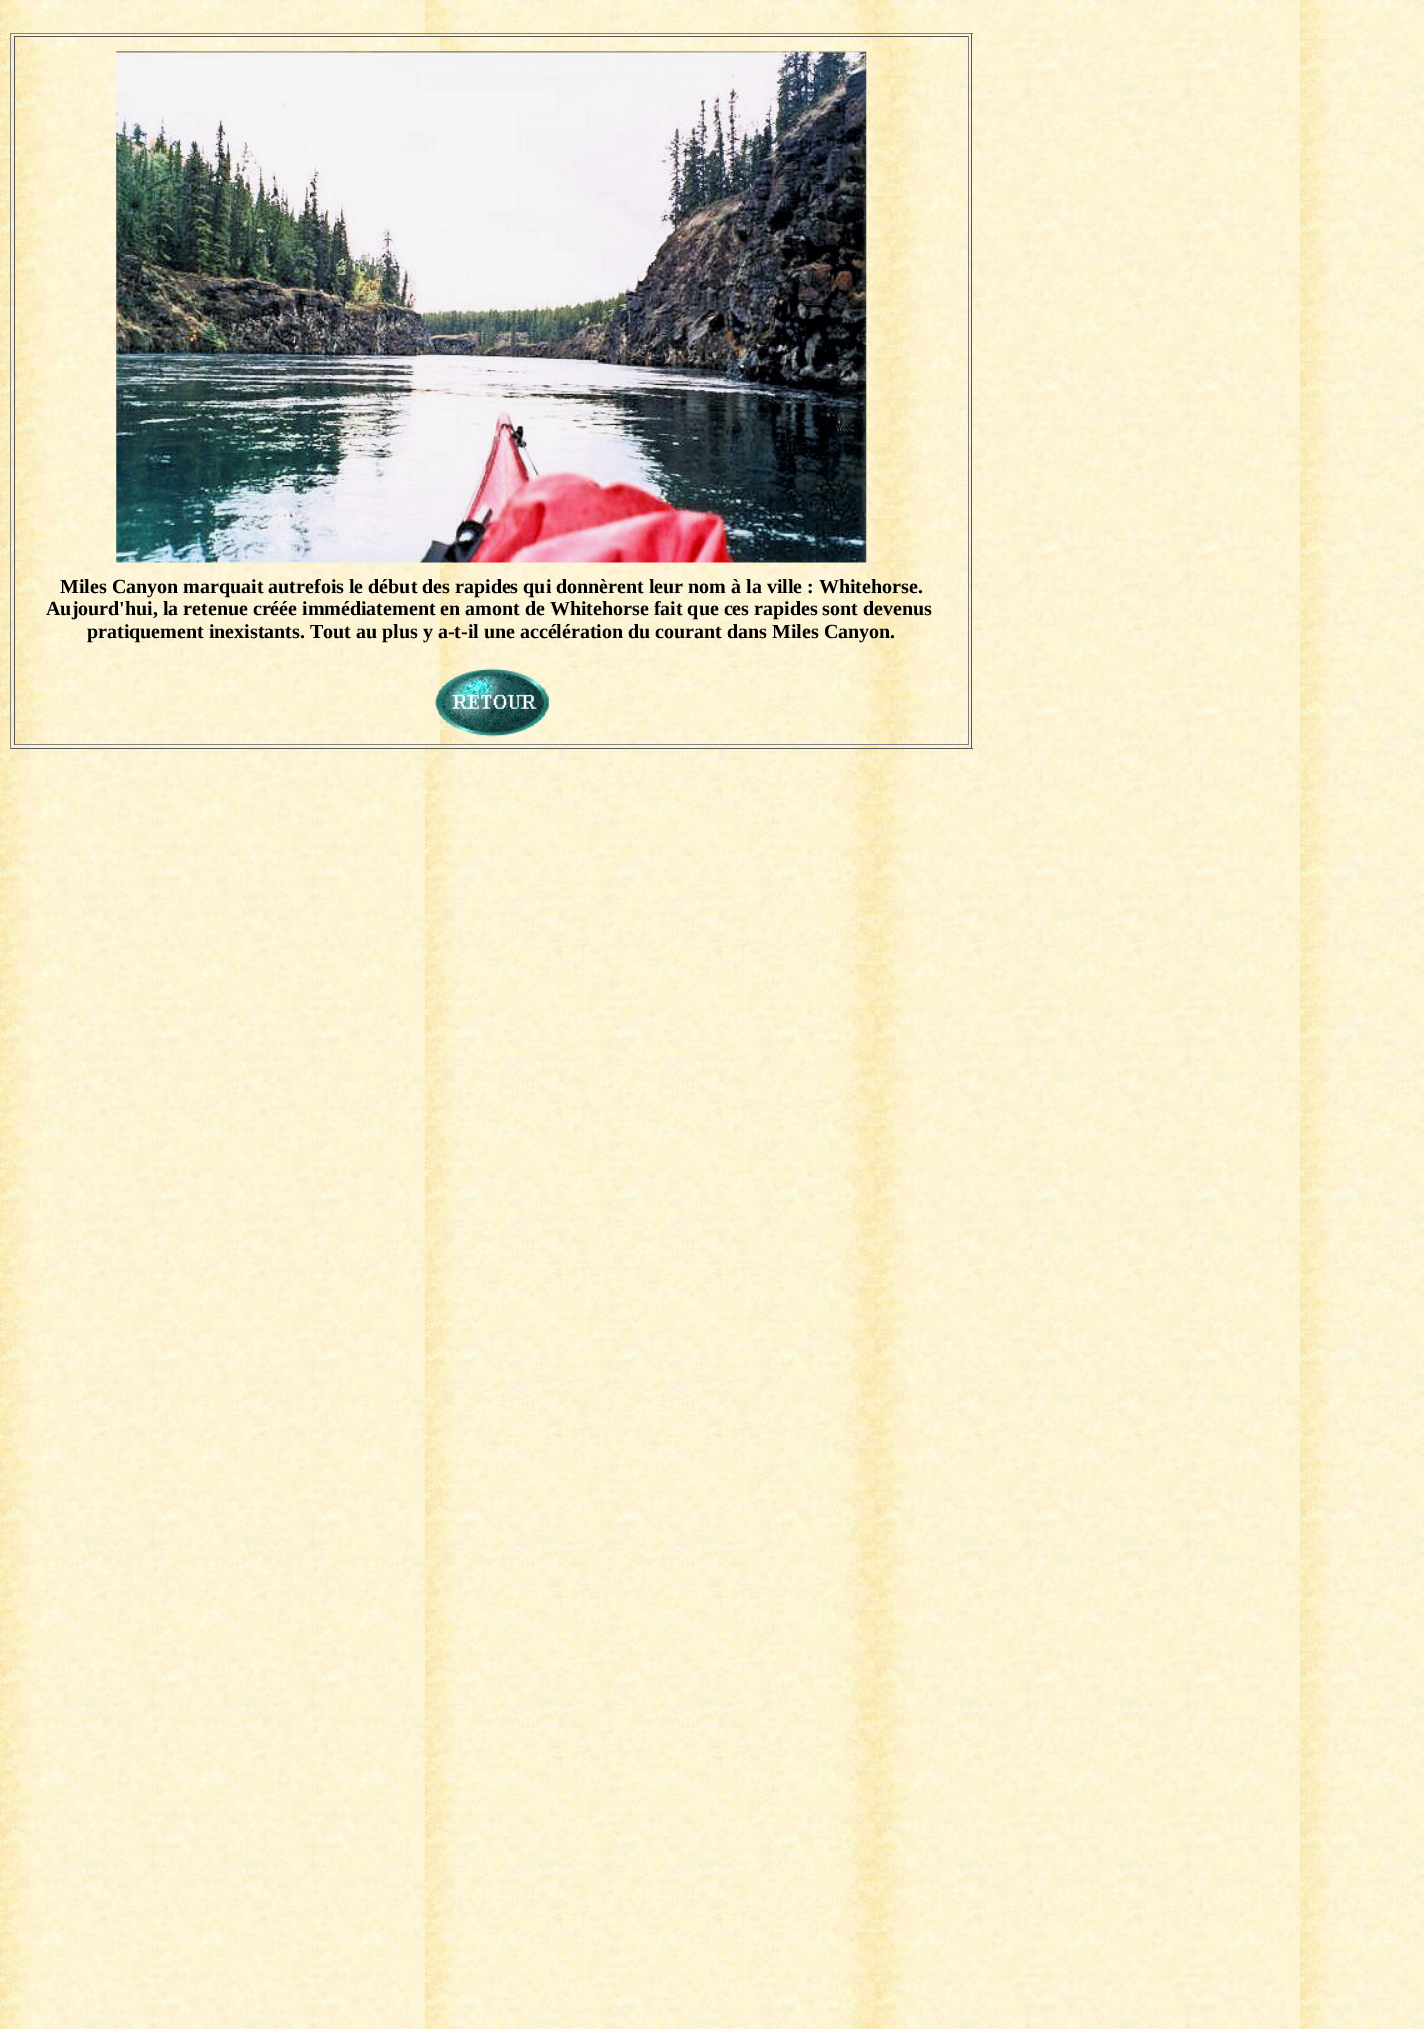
%!PS-Adobe-3.0
%%BoundingBox: 0 0 1424 2029
%%LanguageLevel: 3
%%Pages: 1
%%EndComments
%%BeginProlog
/setink { dup -16 bitshift 255 div exch dup -8 bitshift 255 and 255 div exch 255 and 255 div setrgbcolor } def
/usefont { [ exch dup neg 0 0 3 -1 roll 0 0 ] selectfont } def
/drawimage { 5 dict begin { /h /w /y /x /name } { exch def } forall
  gsave x y translate w h scale
  w h 8 [w 0 0 h 0 0] name (r) file false 3 colorimage grestore end } def
%%EndProlog
%%BeginSetup
<< /PageSize [1424 2029] >> setpagedevice
%%EndSetup
%%Page: 1 1
0 2029 translate 1 -1 scale
4 setmiterlimit
16#FFFFFF setink
0 0 1424 2029 rectfill
(img1.raw) 0 0 1424 2029 drawimage
[
    [10 33 963 1 16#808080]
    [971 33 1 716 16#555555]
    [10 748 963 1 16#555555]
    [10 33 1 716 16#808080]
] { aload pop setink rectfill } forall
(img2.raw) 13 36 955 709 drawimage
[
    [14 36 955 1 16#555555]
    [968 36 1 709 16#808080]
    [14 744 955 1 16#808080]
    [14 36 1 709 16#555555]
] { aload pop setink rectfill } forall
(img3.raw) 116 51 751 512 drawimage
/LiberationSerif-Bold 20 usefont
16#000000 setink
[
    [(Miles Canyon marquait autrefois le début des rapides qui donnèrent leur nom à la ville : Whitehorse.) 60 593]
    [(Aujourd'hui, la retenue créée immédiatement en amont de Whitehorse fait que ces rapides sont devenus) 46 615]
    [(pratiquement inexistants. Tout au plus y a-t-il une accélération du courant dans Miles Canyon.) 87 638]
] { aload pop moveto show } forall
(img4.raw) 434 668 115 69 drawimage
showpage
%%EOF
